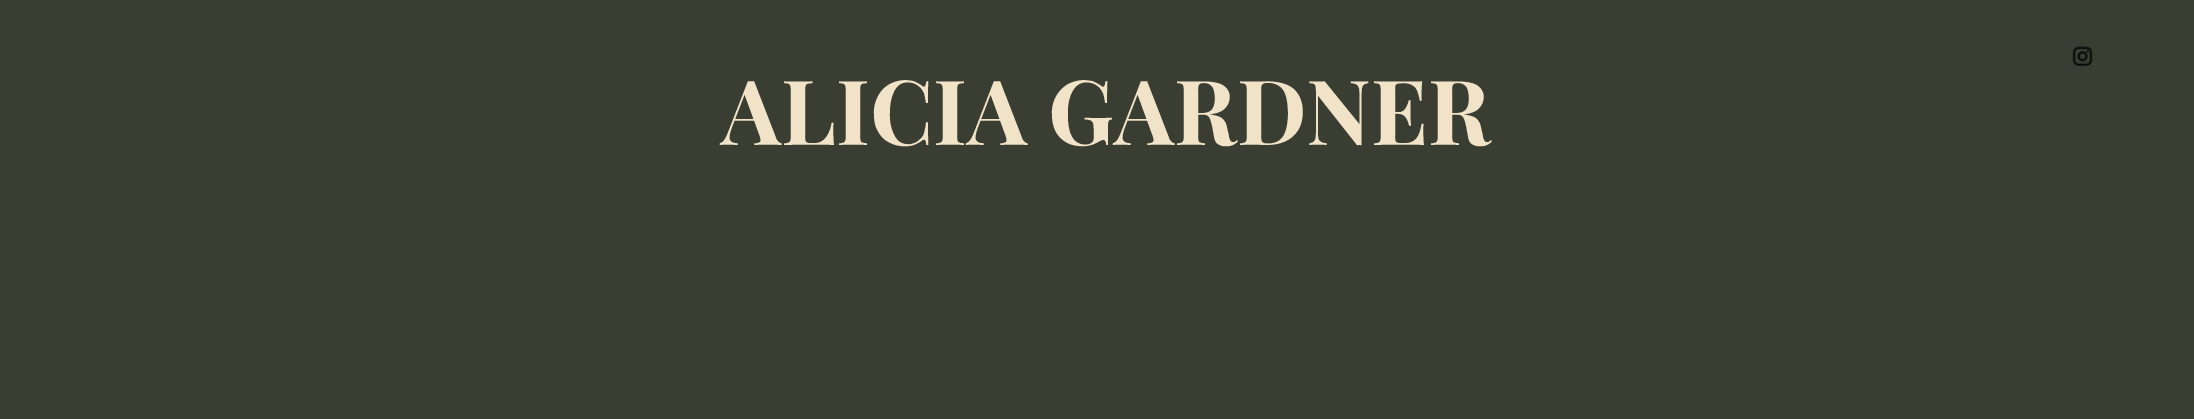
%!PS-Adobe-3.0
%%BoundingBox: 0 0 2194 419
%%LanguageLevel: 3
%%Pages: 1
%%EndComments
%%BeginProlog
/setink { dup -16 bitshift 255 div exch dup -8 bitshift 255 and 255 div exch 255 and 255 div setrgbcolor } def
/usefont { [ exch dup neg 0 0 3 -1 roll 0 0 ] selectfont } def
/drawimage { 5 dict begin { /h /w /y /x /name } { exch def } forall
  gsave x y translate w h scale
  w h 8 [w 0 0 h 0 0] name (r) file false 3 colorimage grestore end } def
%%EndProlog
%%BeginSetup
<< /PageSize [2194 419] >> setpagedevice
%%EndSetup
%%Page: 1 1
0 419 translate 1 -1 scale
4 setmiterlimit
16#393D32 setink
0 0 2194 419 rectfill
(img1.raw) 2072 46 21 21 drawimage
/PlayfairDisplay-Bold 90 usefont
16#F1E3C8 setink
721 145 moveto (ALICIA GARDNER) show
showpage
%%EOF
